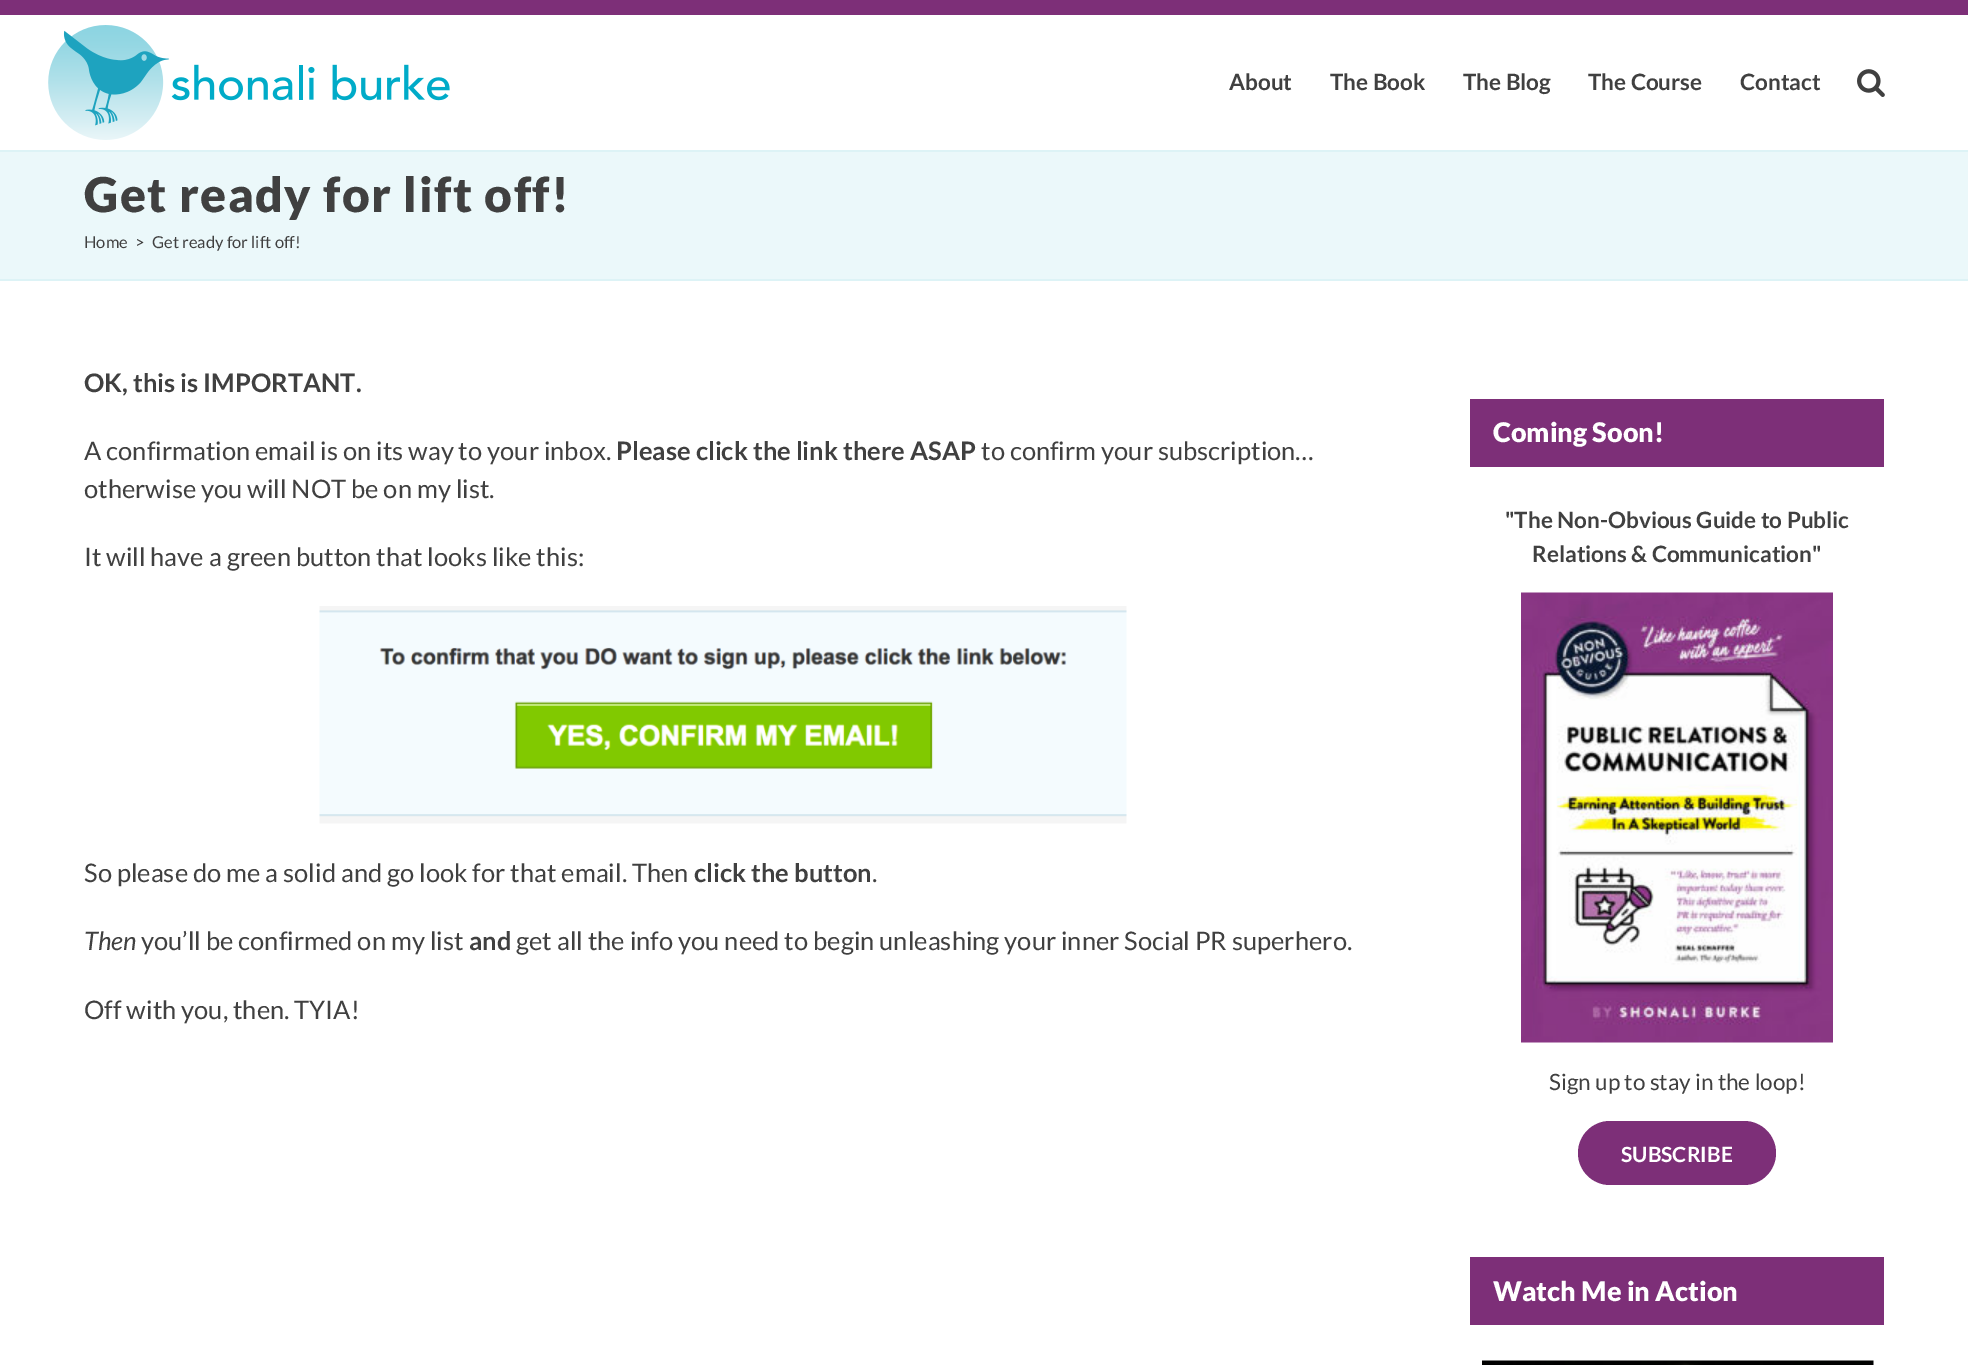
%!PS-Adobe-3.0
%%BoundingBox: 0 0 1968 1365
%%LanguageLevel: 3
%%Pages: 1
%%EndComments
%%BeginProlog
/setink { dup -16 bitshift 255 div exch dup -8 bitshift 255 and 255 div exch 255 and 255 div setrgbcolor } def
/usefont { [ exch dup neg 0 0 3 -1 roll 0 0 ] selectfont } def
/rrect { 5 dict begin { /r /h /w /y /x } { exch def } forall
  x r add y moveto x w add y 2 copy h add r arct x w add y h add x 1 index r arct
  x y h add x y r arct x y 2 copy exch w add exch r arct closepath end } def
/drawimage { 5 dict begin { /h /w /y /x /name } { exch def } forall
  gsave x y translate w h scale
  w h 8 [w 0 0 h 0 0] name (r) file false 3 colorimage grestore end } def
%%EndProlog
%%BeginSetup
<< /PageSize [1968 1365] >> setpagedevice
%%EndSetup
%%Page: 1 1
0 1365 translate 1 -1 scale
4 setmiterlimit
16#FFFFFF setink
0 0 1968 1365 rectfill
16#7D2F78 setink
0 0 1968 15 rectfill
(img1.raw) 48 25 402 115 drawimage
/Lato-Bold 22.5 usefont
16#404040 setink
1229 90 moveto (About) show
1330 90 moveto (The Book) show
gsave
1463 15 126 134 rectclip
1463 90 moveto (The Blog) show
grestore
1588 90 moveto (The Course) show
1740 90 moveto (Contact) show
(img2.raw) 1857 69 28 28 drawimage
[
    [0 152 1968 127 16#EBF8FA]
    [0 150 1968 2 16#DDF3F6]
    [0 279 1968 2 16#DDF3F6]
] { aload pop setink rectfill } forall
/Lato-Black 48 usefont
16#404040 setink
84 212 moveto 1.5 0 (Get ready for lift off!) ashow
/Lato-Regular 16.5 usefont
[
    [(Home) 84 248]
    [(>) 135 248]
    [(Get ready for lift off!) 152 248]
] { aload pop moveto show } forall
/Lato-Bold 25.5 usefont
84 392 moveto (OK, this is IMPORTANT.) show
/Lato-Regular 25.5 usefont
84 460 moveto (A confirmation email is on its way to your inbox.) show
/Lato-Bold 25.5 usefont
616 460 moveto (Please click the link there ASAP) show
/Lato-Regular 25.5 usefont
[
    [(to confirm your subscription…) 981 460]
    [(otherwise you will NOT be on my list.) 84 498]
    [(It will have a green button that looks like this:) 84 566]
] { aload pop moveto show } forall
(img3.raw) 319 606 808 218 drawimage
84 882 moveto (So please do me a solid and go look for that email. Then) show
/Lato-Bold 25.5 usefont
694 882 moveto (click the button) show
/Lato-Regular 25.5 usefont
872 882 moveto (.) show
/Lato-Italic 25.5 usefont
84 950 moveto (Then) show
/Lato-Regular 25.5 usefont
141 950 moveto (you’ll be confirmed on my list) show
/Lato-Bold 25.5 usefont
469 950 moveto (and) show
/Lato-Regular 25.5 usefont
516 950 moveto (get all the info you need to begin unleashing your inner Social PR superhero.) show
84 1019 moveto (Off with you, then. TYIA!) show
16#7D2F78 setink
1470 399 414 68 rectfill
/Lato-Black 27 usefont
16#FFFFFF setink
1493 442 moveto (Coming Soon!) show
/Lato-Bold 22.5 usefont
16#404040 setink
1505 528 moveto ("The Non-Obvious Guide to Public) show
1532 562 moveto (Relations & Communication") show
(img4.raw) 1521 592 312 451 drawimage
/Lato-Regular 22.5 usefont
1549 1090 moveto (Sign up to stay in the loop!) show
16#7D2F78 setink
1578 1121 198 64 32 rrect fill
/Lato-Bold 21 usefont
16#FFFFFF setink
1621 1162 moveto (SUBSCRIBE) show
16#7D2F78 setink
1470 1257 414 68 rectfill
/Lato-Black 27 usefont
16#FFFFFF setink
1493 1301 moveto (Watch Me in Action) show
(img5.raw) 1482 1360 392 5 drawimage
showpage
%%EOF
